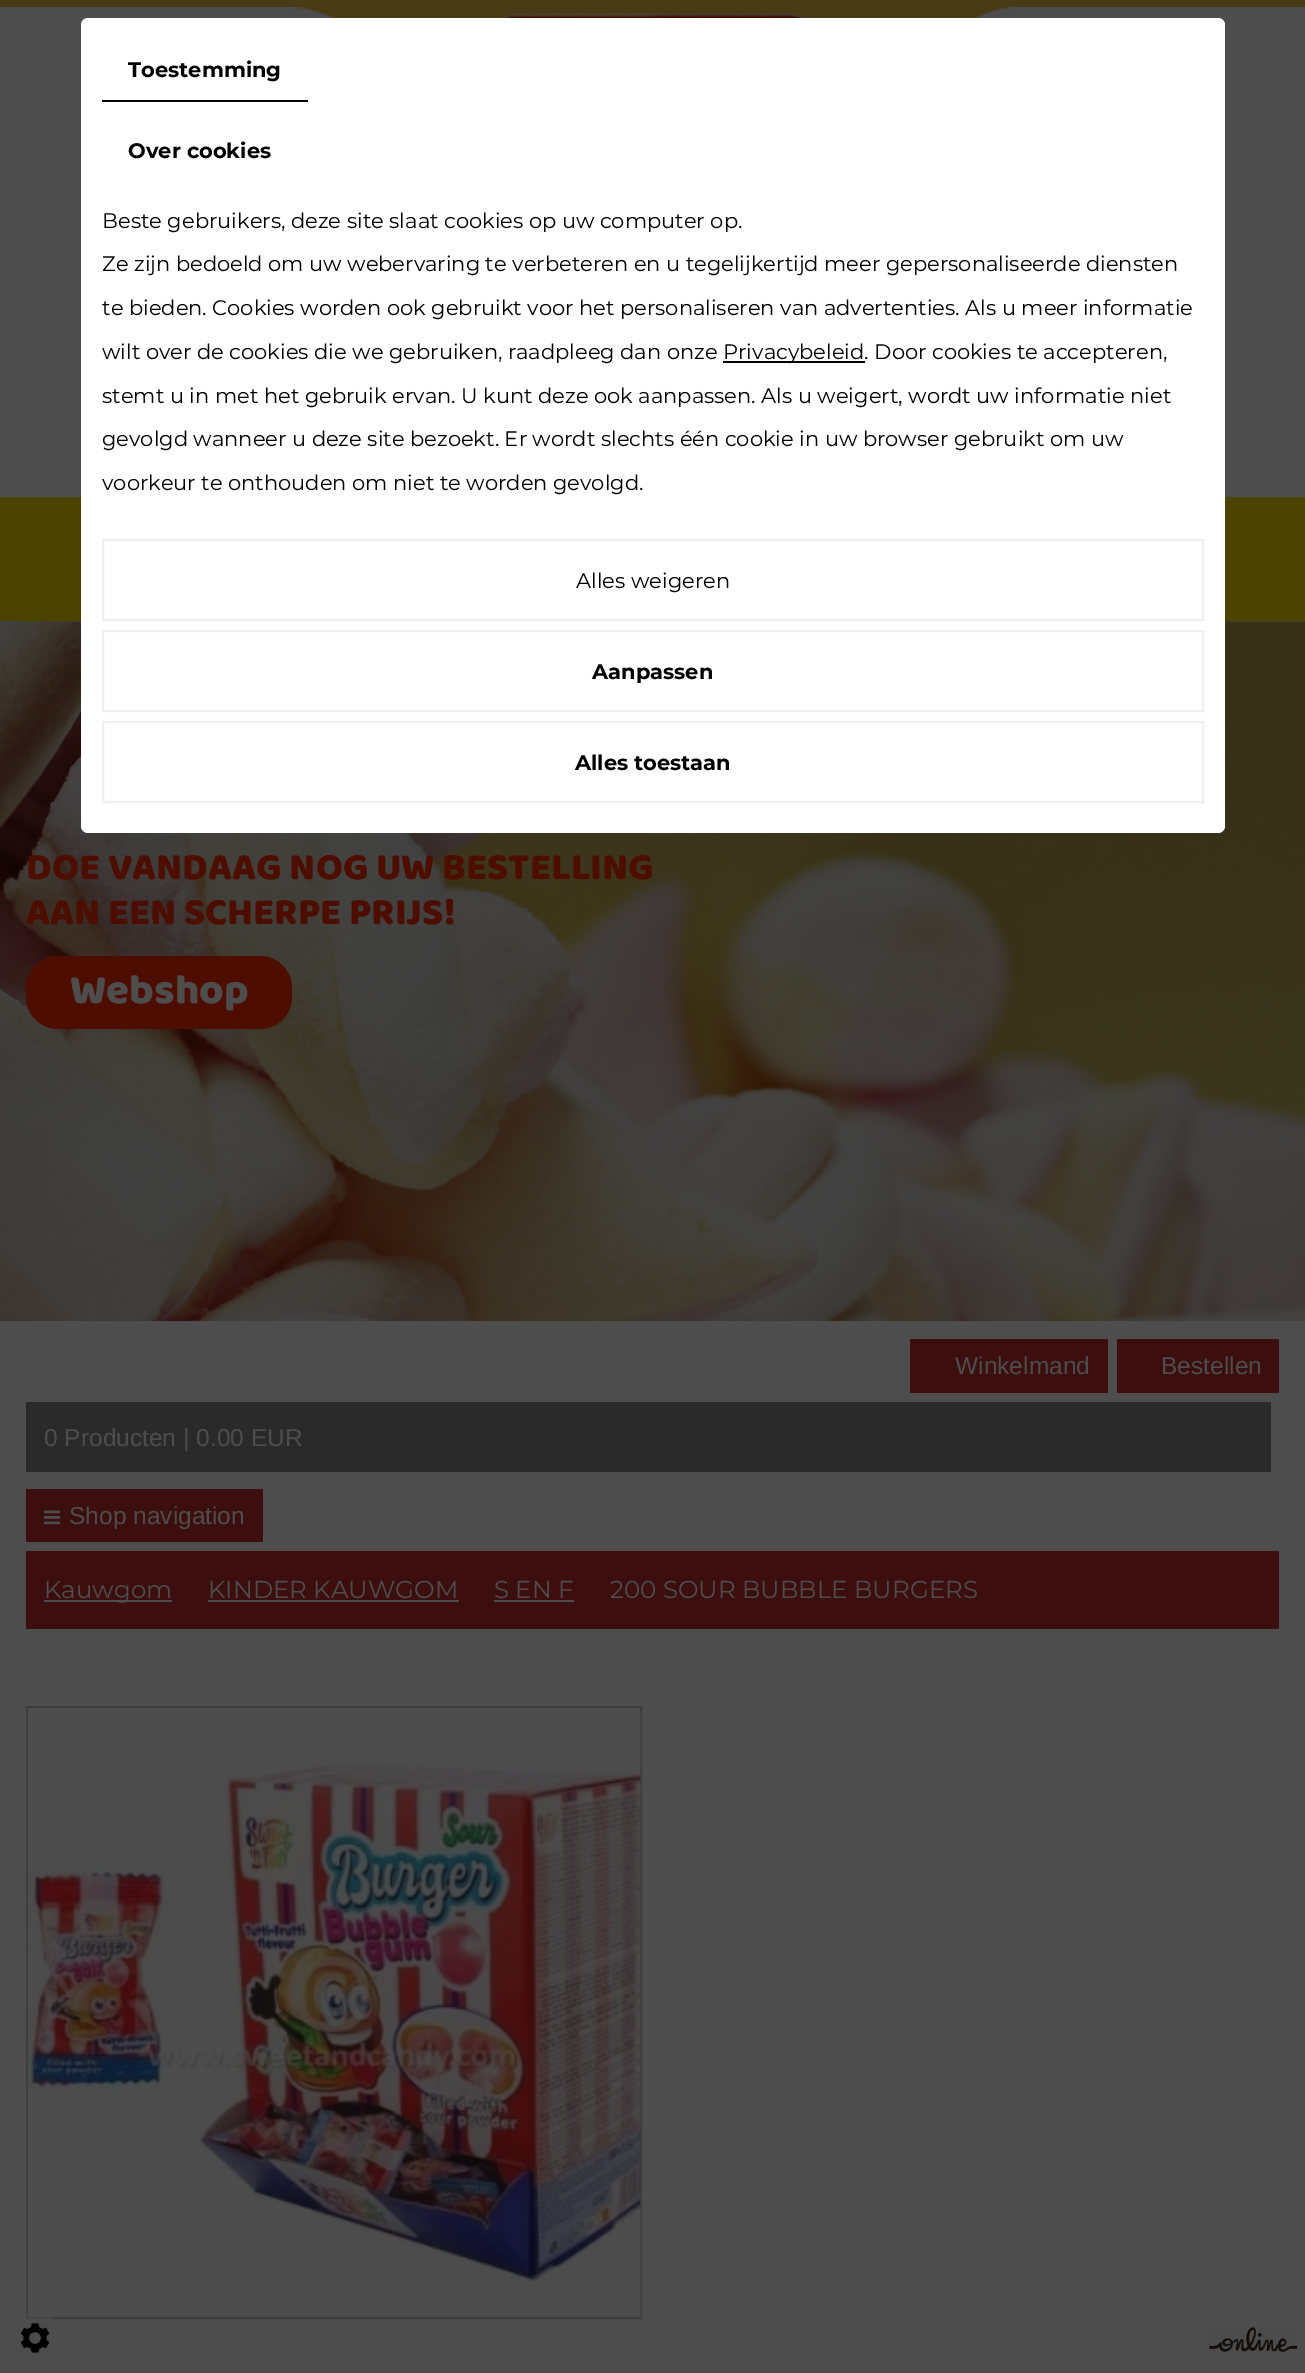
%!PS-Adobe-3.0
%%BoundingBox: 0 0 1305 2373
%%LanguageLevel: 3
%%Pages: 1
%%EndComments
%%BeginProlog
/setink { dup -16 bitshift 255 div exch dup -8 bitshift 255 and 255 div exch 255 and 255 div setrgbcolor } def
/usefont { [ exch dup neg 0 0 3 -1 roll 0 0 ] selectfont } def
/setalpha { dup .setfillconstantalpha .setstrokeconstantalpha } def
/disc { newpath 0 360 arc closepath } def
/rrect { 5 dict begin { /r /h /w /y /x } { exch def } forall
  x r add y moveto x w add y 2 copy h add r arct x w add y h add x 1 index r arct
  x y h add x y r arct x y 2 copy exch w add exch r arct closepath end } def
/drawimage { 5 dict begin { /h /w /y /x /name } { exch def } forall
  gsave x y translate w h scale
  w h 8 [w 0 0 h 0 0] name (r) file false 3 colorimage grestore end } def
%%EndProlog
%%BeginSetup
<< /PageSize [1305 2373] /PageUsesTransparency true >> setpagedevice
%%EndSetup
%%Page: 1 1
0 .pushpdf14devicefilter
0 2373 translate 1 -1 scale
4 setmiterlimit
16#4D4D4D setink
0 0 1305 2373 rectfill
16#454545 setink
0 621 1305 1 rectfill
16#493B16 setink
0 0 1305 7 rectfill
(img1.raw) 291 7 723 11 drawimage
16#4D4301 setink
0 497 1305 124 rectfill
(img2.raw) 0 621 1305 701 drawimage
16#FFFFFF setink
81 18 1144 815 7 rrect fill
16#000000 setink
102 100 206 2 rectfill
/Montserrat-Bold 21 usefont
128 77 moveto (Toestemming) show
128 158 moveto (Over cookies) show
/Montserrat-Regular 21 usefont
[
    [(Beste gebruikers, deze site slaat cookies op uw computer op.) 102 228]
    [(Ze zijn bedoeld om uw webervaring te verbeteren en u tegelijkertijd meer gepersonaliseerde diensten) 102 271]
    [(te bieden. Cookies worden ook gebruikt voor het personaliseren van advertenties. Als u meer informatie) 102 315]
    [(wilt over de cookies die we gebruiken, raadpleeg dan onze) 102 359]
] { aload pop moveto show } forall
723 361 142 2 rectfill
[
    [(Privacybeleid. Door cookies te accepteren,) 723 359]
    [(stemt u in met het gebruik ervan. U kunt deze ook aanpassen. Als u weigert, wordt uw informatie niet) 102 403]
    [(gevolgd wanneer u deze site bezoekt. Er wordt slechts één cookie in uw browser gebruikt om uw) 102 446]
    [(voorkeur te onthouden om niet te worden gevolgd.) 102 490]
] { aload pop moveto show } forall
16#F0F0F0 setink
2 setlinewidth
103 540 1100 80 rectstroke
16#000000 setink
576 588 moveto (Alles weigeren) show
16#F0F0F0 setink
103 631 1100 80 rectstroke
/Montserrat-Bold 21 usefont
16#000000 setink
592 679 moveto (Aanpassen) show
16#F0F0F0 setink
103 722 1100 80 rectstroke
16#000000 setink
575 770 moveto (Alles toestaan) show
/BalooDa-Regular 38.5 usefont
16#4D0E00 setink
26 879 moveto (DOE VANDAAG NOG UW BESTELLING) show
26 924 moveto (AAN EEN SCHERPE PRIJS!) show
26 956 266 73 32 rrect fill
/BalooDa-Regular 42 usefont
16#4D4D4D setink
70 1003 moveto (Webshop) show
16#3C0E0E setink
910 1339 198 54 rectfill
/LiberationSans-Regular 24.5 usefont
16#4D4D4D setink
955 1374 moveto (Winkelmand) show
16#3C0E0E setink
1117 1339 162 54 rectfill
16#4D4D4D setink
1161 1374 moveto (Bestellen) show
16#2A2A2A setink
26 1402 1245 70 rectfill
16#4D4D4D setink
44 1446 moveto (0 Producten | 0.00 EUR) show
16#3C0E0E setink
26 1489 237 53 rectfill
(img3.raw) 43 1510 18 15 drawimage
16#4D4D4D setink
69 1524 moveto (Shop navigation) show
16#3C0E0E setink
26 1551 1253 78 rectfill
16#4D4D4D setink
44 1600 128 2 rectfill
/Montserrat-Regular 24.5 usefont
44 1598 moveto (Kauwgom) show
208 1598 moveto (KINDER KAUWGOM) show
208 1600 251 2 rectfill
494 1598 moveto (S EN F) show
494 1600 80 2 rectfill
610 1598 moveto (200 SOUR BUBBLE BURGERS) show
16#3F3E3F setink
27 1707 614 611 rectstroke
(img4.raw) 28 1708 613 609 drawimage
0.54 setalpha
16#4D4D4D setink
35 2338 26 disc fill
1 setalpha
(img5.raw) 20 2323 30 30 drawimage
(img6.raw) 1209 2327 88 25 drawimage
.poppdf14devicefilter showpage
%%EOF
